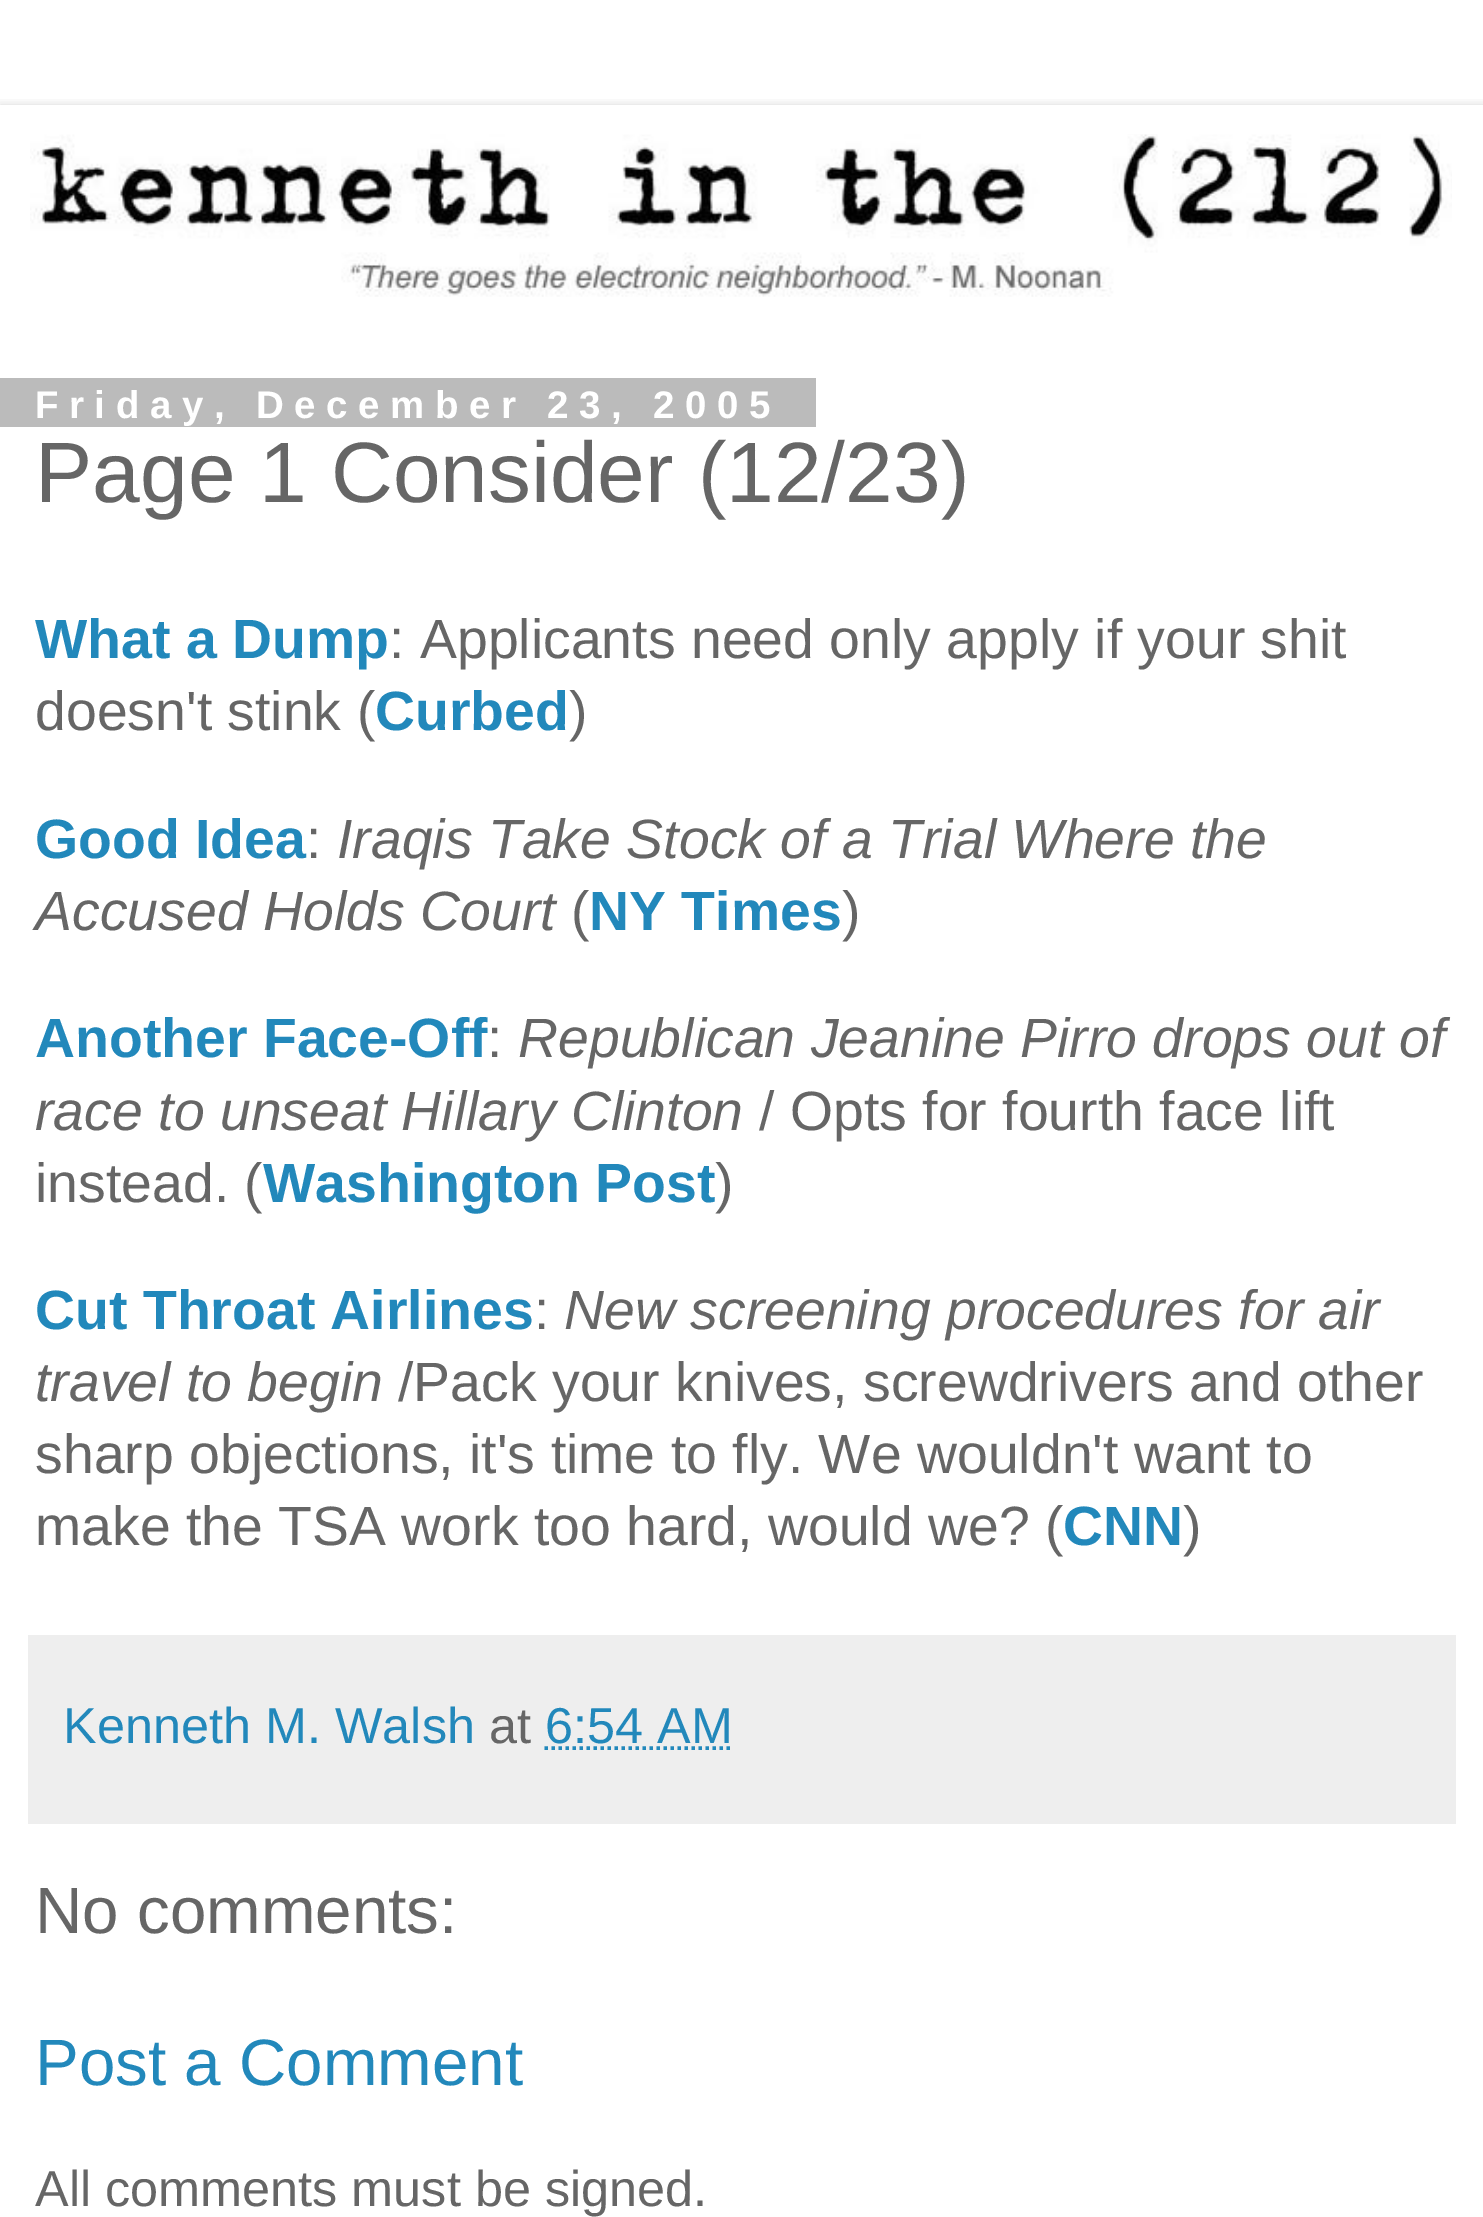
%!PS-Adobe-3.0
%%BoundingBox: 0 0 1483 2217
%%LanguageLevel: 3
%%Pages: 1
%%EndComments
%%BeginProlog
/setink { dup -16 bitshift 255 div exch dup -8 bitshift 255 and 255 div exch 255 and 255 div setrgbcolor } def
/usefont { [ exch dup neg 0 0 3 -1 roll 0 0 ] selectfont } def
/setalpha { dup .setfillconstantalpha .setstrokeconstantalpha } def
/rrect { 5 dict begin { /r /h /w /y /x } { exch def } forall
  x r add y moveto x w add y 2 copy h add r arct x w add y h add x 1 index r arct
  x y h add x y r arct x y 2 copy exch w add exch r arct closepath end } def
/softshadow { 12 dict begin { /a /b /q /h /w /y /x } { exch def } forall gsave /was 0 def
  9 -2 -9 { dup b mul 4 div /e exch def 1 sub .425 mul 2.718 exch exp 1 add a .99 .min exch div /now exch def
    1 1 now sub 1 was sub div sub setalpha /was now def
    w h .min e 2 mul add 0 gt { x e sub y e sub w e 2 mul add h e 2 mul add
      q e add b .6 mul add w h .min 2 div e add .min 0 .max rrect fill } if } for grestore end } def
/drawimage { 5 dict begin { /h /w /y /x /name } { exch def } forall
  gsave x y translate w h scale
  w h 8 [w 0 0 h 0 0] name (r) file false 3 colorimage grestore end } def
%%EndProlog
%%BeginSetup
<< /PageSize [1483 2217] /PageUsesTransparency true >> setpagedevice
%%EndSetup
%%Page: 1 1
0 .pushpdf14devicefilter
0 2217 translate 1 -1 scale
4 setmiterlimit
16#FFFFFF setink
0 0 1483 2217 rectfill
gsave
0 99 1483 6 rectclip
16#000000 setink
0 105 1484 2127 0 5 0.15 softshadow
grestore
(img1.raw) 30 134 1422 163 drawimage
16#BBBBBB setink
0 378 816 49 rectfill
/LiberationSans-Bold 38.5 usefont
16#FFFFFF setink
35 418 moveto 10.5 0 (Friday, December 23, 2005) ashow
/LiberationSans-Regular 85.75 usefont
16#666666 setink
35 502 moveto (Page 1 Consider \(12/23\)) show
/LiberationSans-Bold 55.4 usefont
16#2288BB setink
35 658 moveto (What a Dump) show
/LiberationSans-Regular 55.4 usefont
16#666666 setink
389 658 moveto (: Applicants need only apply if your shit) show
35 730 moveto (doesn't stink \() show
/LiberationSans-Bold 55.4 usefont
16#2288BB setink
375 730 moveto (Curbed) show
/LiberationSans-Regular 55.4 usefont
16#666666 setink
569 730 moveto (\)) show
/LiberationSans-Bold 55.4 usefont
16#2288BB setink
35 858 moveto (Good Idea) show
/LiberationSans-Regular 55.4 usefont
16#666666 setink
306 858 moveto (:) show
/LiberationSans-Italic 55.4 usefont
337 858 moveto (Iraqis Take Stock of a Trial Where the) show
35 930 moveto (Accused Holds Court) show
/LiberationSans-Regular 55.4 usefont
571 930 moveto (\() show
/LiberationSans-Bold 55.4 usefont
16#2288BB setink
589 930 moveto (NY Times) show
/LiberationSans-Regular 55.4 usefont
16#666666 setink
842 930 moveto (\)) show
/LiberationSans-Bold 55.4 usefont
16#2288BB setink
35 1057 moveto (Another Face-Off) show
/LiberationSans-Regular 55.4 usefont
16#666666 setink
487 1057 moveto (:) show
/LiberationSans-Italic 55.4 usefont
518 1057 moveto (Republican Jeanine Pirro drops out of) show
35 1130 moveto (race to unseat Hillary Clinton) show
/LiberationSans-Regular 55.4 usefont
759 1130 moveto (/ Opts for fourth face lift) show
35 1202 moveto (instead. \() show
/LiberationSans-Bold 55.4 usefont
16#2288BB setink
263 1202 moveto (Washington Post) show
/LiberationSans-Regular 55.4 usefont
16#666666 setink
715 1202 moveto (\)) show
/LiberationSans-Bold 55.4 usefont
16#2288BB setink
35 1329 moveto (Cut Throat Airlines) show
/LiberationSans-Regular 55.4 usefont
16#666666 setink
534 1329 moveto (:) show
/LiberationSans-Italic 55.4 usefont
564 1329 moveto (New screening procedures for air) show
35 1401 moveto (travel to begin) show
/LiberationSans-Regular 55.4 usefont
[
    [(/Pack your knives, screwdrivers and other) 398 1401]
    [(sharp objections, it's time to fly. We wouldn't want to) 35 1473]
    [(make the TSA work too hard, would we? \() 35 1545]
] { aload pop moveto show } forall
/LiberationSans-Bold 55.4 usefont
16#2288BB setink
1063 1545 moveto (CNN) show
/LiberationSans-Regular 55.4 usefont
16#666666 setink
1183 1545 moveto (\)) show
16#EEEEEE setink
28 1635 1428 189 rectfill
/LiberationSans-Regular 50.4 usefont
16#2288BB setink
63 1743 moveto (Kenneth M. Walsh) show
16#666666 setink
489 1743 moveto (at) show
16#2288BB setink
545 1743 moveto (6:54 AM) show
3.5 setlinewidth
[3.5 3.5] 0 setdash
544.5 1748 moveto 732 1748 lineto stroke
/LiberationSans-Regular 65.5 usefont
16#666666 setink
35 1933 moveto (No comments:) show
16#2288BB setink
35 2085 moveto (Post a Comment) show
/LiberationSans-Regular 50.4 usefont
16#666666 setink
35 2206 moveto (All comments must be signed.) show
.poppdf14devicefilter showpage
%%EOF
